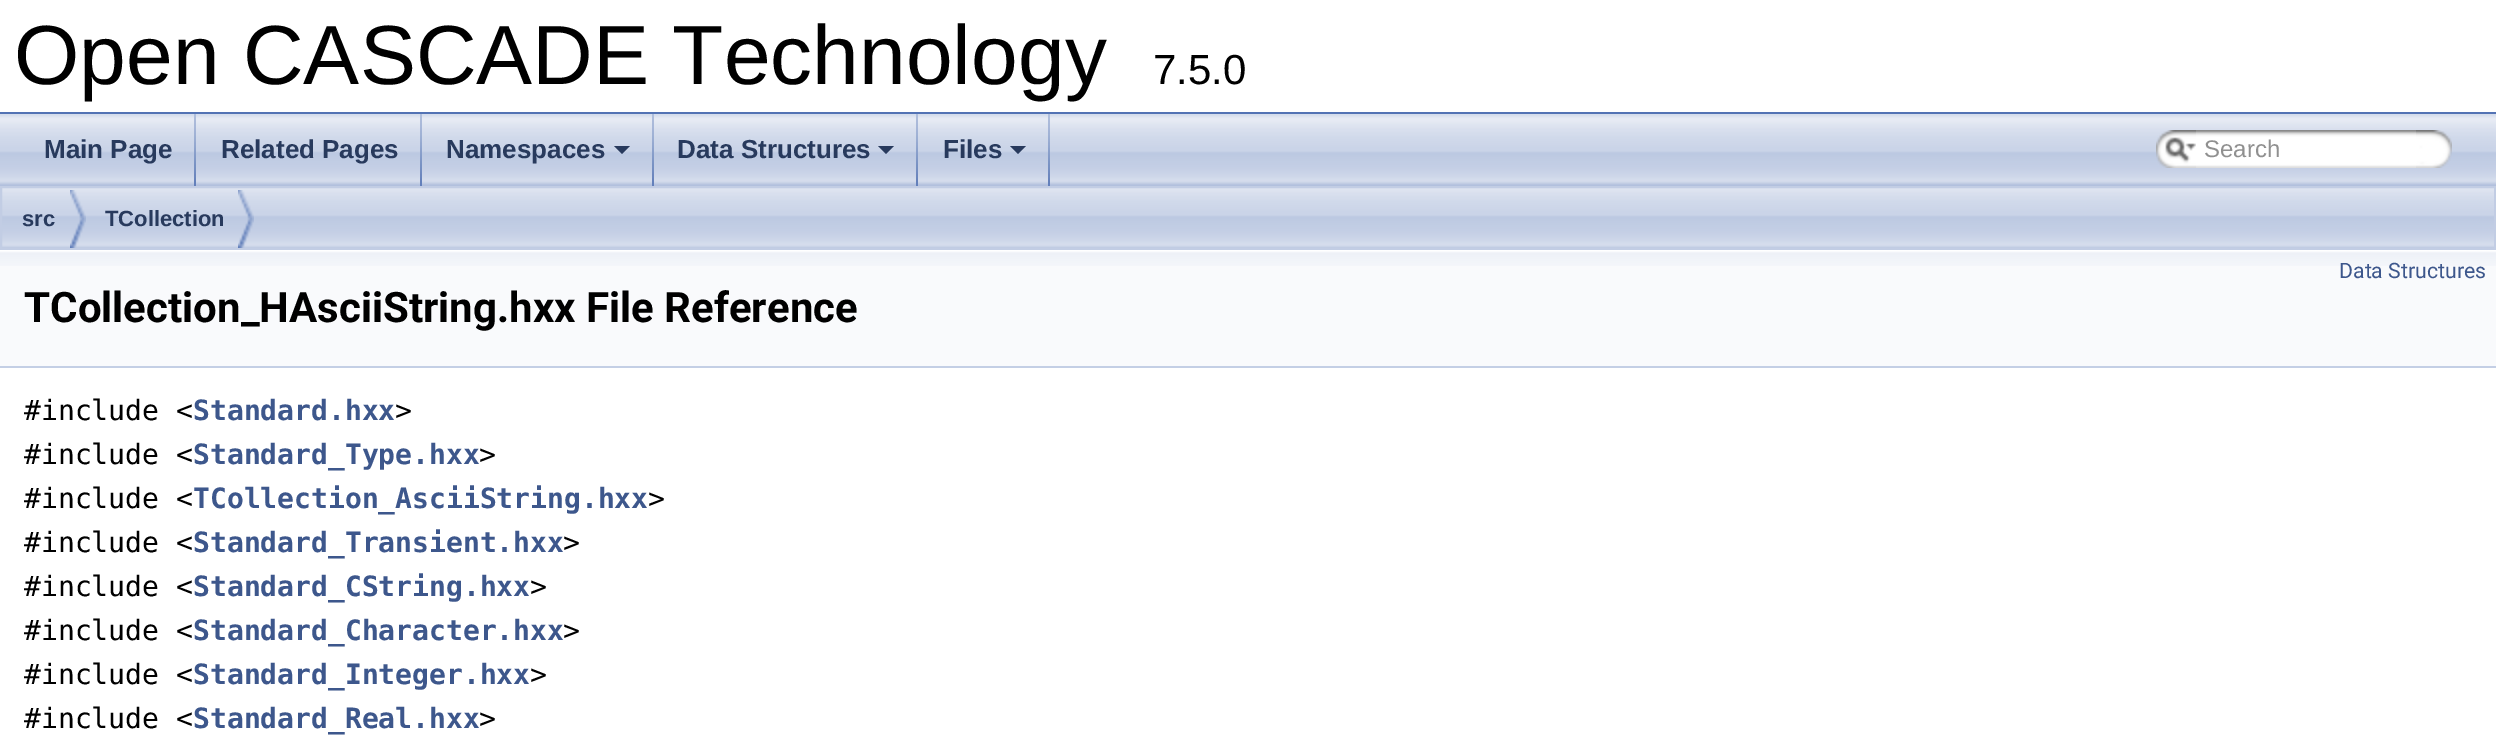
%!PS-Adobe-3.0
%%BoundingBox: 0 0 2496 741
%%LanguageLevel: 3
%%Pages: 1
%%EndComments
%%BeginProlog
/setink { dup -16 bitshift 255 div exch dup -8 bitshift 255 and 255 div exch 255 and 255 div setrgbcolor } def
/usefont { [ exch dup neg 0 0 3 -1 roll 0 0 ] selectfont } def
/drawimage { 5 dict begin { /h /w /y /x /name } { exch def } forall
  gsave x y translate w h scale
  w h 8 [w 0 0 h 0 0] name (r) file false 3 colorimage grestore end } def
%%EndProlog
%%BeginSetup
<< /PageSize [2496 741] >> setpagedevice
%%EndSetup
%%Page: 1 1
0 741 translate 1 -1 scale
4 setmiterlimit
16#FFFFFF setink
0 0 2496 741 rectfill
16#5373B4 setink
0 112 2496 2 rectfill
/LiberationSans-Regular 84 usefont
16#000000 setink
14 84 moveto (Open CASCADE Technology) show
/LiberationSans-Regular 42 usefont
1153 84 moveto (7.5.0) show
(img1.raw) 0 114 2496 72 drawimage
(img2.raw) 194 114 2 72 drawimage
/LiberationSans-Bold 26 usefont
16#283A5D setink
44 158 moveto (Main Page) show
(img2.raw) 420 114 2 72 drawimage
221 158 moveto (Related Pages) show
(img2.raw) 652 114 2 72 drawimage
446 158 moveto (Namespaces) show
614 146 moveto 630 146 lineto 622 154 lineto closepath fill
(img2.raw) 916 114 2 72 drawimage
677 158 moveto (Data Structures) show
878 146 moveto 894 146 lineto 886 154 lineto closepath fill
(img2.raw) 1048 114 2 72 drawimage
943 158 moveto (Files) show
1010 146 moveto 1026 146 lineto 1018 154 lineto closepath fill
(img3.raw) 2156 130 40 38 drawimage
(img4.raw) 2165 137 31 26 drawimage
(img5.raw) 2196 130 220 38 drawimage
/LiberationSans-Regular 24 usefont
16#909090 setink
2204 157 moveto (Search) show
(img6.raw) 2416 130 36 38 drawimage
(img7.raw) 2 188 2492 60 drawimage
16#C2CDE4 setink
2 setlinewidth
1 187 2494 62 rectstroke
(img8.raw) 70 190 16 58 drawimage
/LiberationSans-Bold 22 usefont
16#283A5D setink
22 226 moveto (src) show
(img8.raw) 238 190 16 58 drawimage
105 226 moveto (TCollection) show
16#F9FAFC setink
0 266 2496 100 rectfill
(img9.raw) 0 250 2496 16 drawimage
16#C4CFE5 setink
0 366 2496 2 rectfill
/Roboto-Regular 21.25 usefont
16#3D578C setink
2339 278 moveto (Data Structures) show
/Roboto-Bold 42 usefont
16#000000 setink
24 322 moveto (TCollection_HAsciiString.hxx File Reference) show
/DejaVuSansMono-Regular 28 usefont
24 420 moveto (#include <) show
/DejaVuSansMono-Bold 28 usefont
16#3D578C setink
193 420 moveto (Standard.hxx) show
/DejaVuSansMono-Regular 28 usefont
16#000000 setink
395 420 moveto (>) show
24 464 moveto (#include <) show
/DejaVuSansMono-Bold 28 usefont
16#3D578C setink
193 464 moveto (Standard_Type.hxx) show
/DejaVuSansMono-Regular 28 usefont
16#000000 setink
479 464 moveto (>) show
24 508 moveto (#include <) show
/DejaVuSansMono-Bold 28 usefont
16#3D578C setink
193 508 moveto (TCollection_AsciiString.hxx) show
/DejaVuSansMono-Regular 28 usefont
16#000000 setink
648 508 moveto (>) show
24 552 moveto (#include <) show
/DejaVuSansMono-Bold 28 usefont
16#3D578C setink
193 552 moveto (Standard_Transient.hxx) show
/DejaVuSansMono-Regular 28 usefont
16#000000 setink
563 552 moveto (>) show
24 596 moveto (#include <) show
/DejaVuSansMono-Bold 28 usefont
16#3D578C setink
193 596 moveto (Standard_CString.hxx) show
/DejaVuSansMono-Regular 28 usefont
16#000000 setink
530 596 moveto (>) show
24 640 moveto (#include <) show
/DejaVuSansMono-Bold 28 usefont
16#3D578C setink
193 640 moveto (Standard_Character.hxx) show
/DejaVuSansMono-Regular 28 usefont
16#000000 setink
563 640 moveto (>) show
24 684 moveto (#include <) show
/DejaVuSansMono-Bold 28 usefont
16#3D578C setink
193 684 moveto (Standard_Integer.hxx) show
/DejaVuSansMono-Regular 28 usefont
16#000000 setink
530 684 moveto (>) show
24 728 moveto (#include <) show
/DejaVuSansMono-Bold 28 usefont
16#3D578C setink
193 728 moveto (Standard_Real.hxx) show
/DejaVuSansMono-Regular 28 usefont
16#000000 setink
479 728 moveto (>) show
showpage
%%EOF
